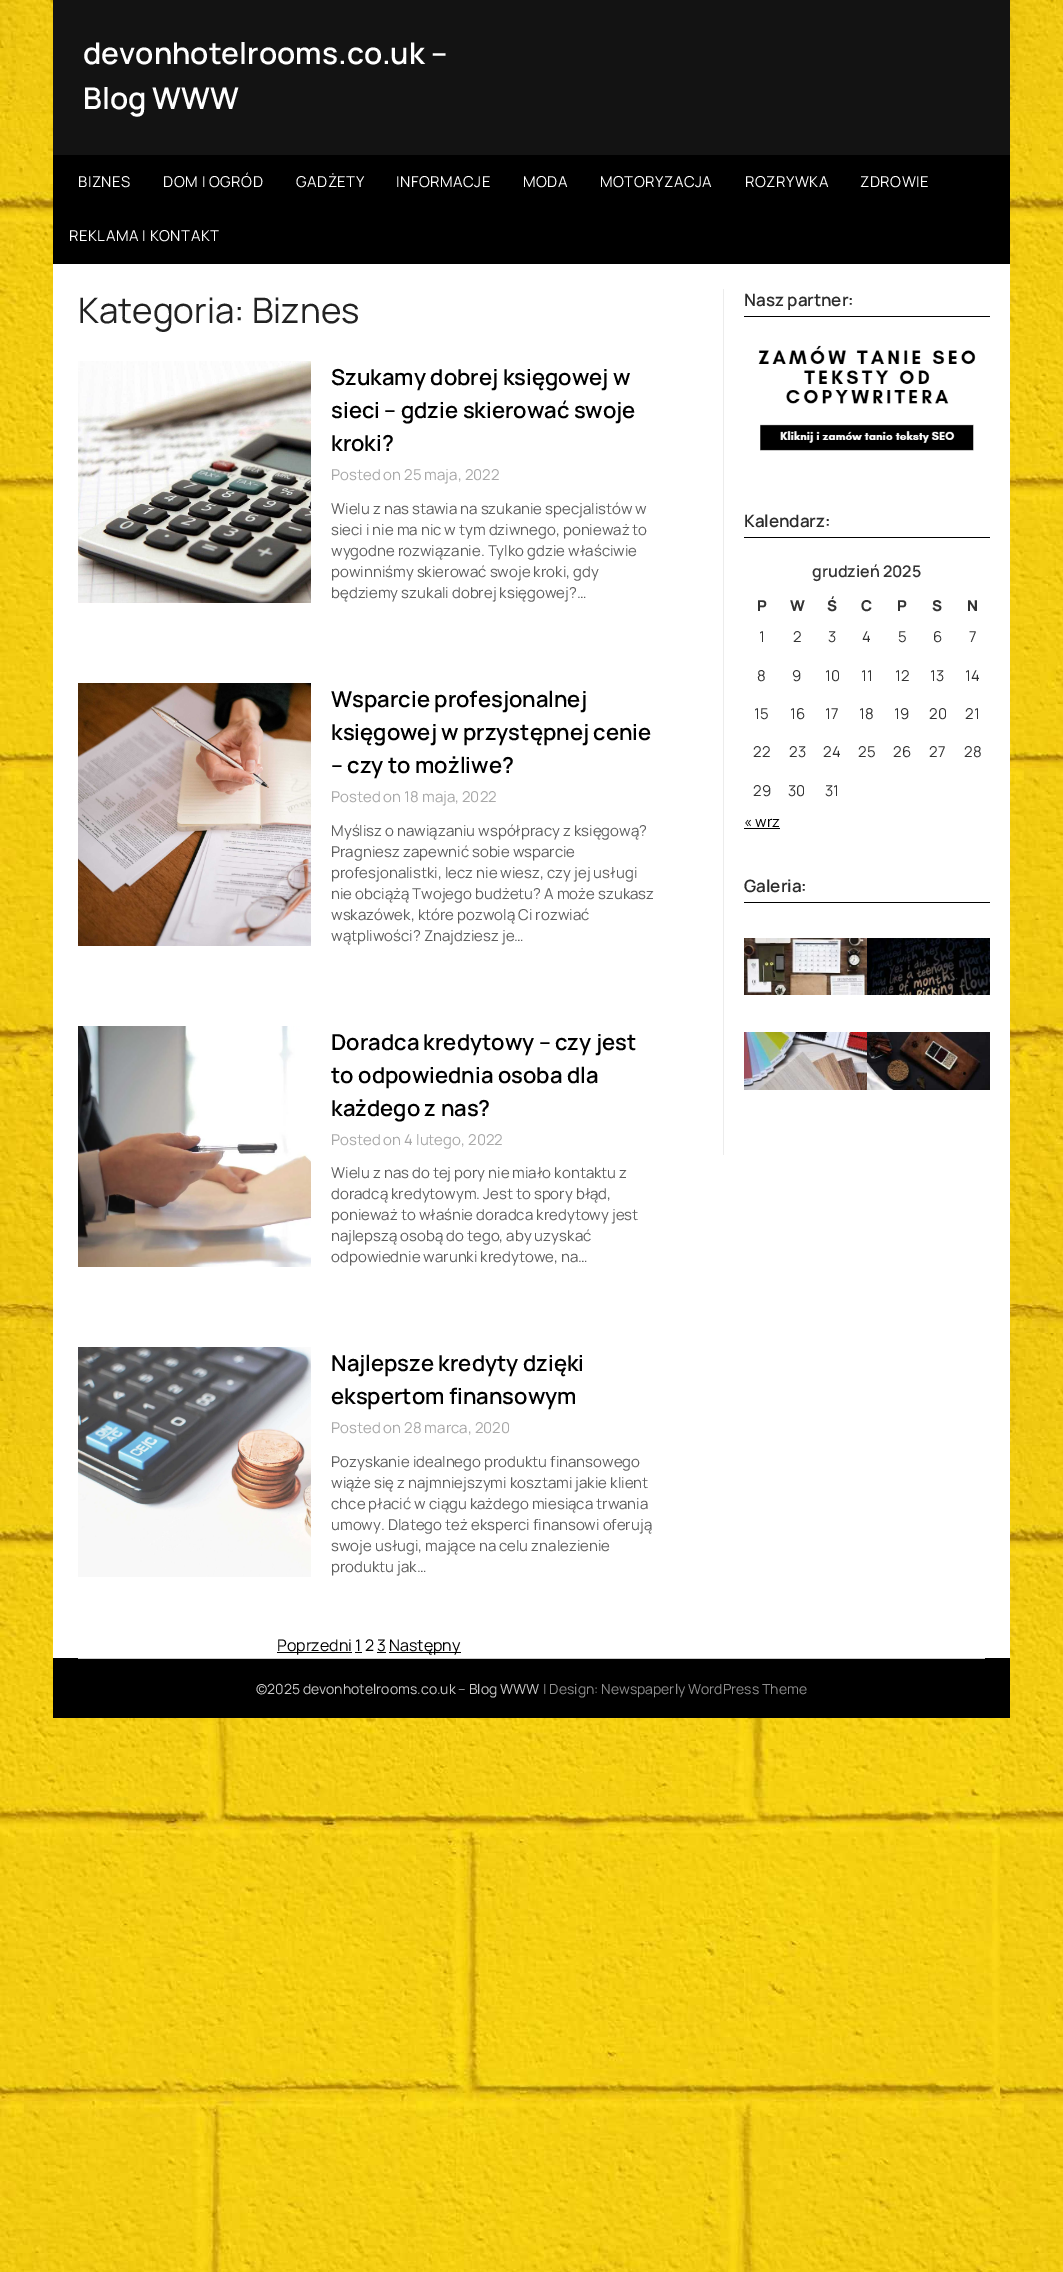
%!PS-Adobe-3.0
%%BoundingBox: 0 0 1063 2272
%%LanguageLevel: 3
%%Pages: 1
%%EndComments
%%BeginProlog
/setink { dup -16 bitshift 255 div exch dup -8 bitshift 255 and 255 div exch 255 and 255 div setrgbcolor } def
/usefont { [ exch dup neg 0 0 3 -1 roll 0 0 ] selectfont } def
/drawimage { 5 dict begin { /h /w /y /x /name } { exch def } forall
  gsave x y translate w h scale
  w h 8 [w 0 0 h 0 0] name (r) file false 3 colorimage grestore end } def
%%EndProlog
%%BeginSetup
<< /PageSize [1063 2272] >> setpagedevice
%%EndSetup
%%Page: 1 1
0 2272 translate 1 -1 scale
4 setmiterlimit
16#FFFFFF setink
0 0 1063 2272 rectfill
(img1.raw) 0 0 1063 2272 drawimage
16#131313 setink
53 0 957 155 rectfill
/Manrope-SemiBold 30 usefont
16#FFFFFF setink
83 64 moveto (devonhotelrooms.co.uk –) show
83 109 moveto (Blog WWW) show
16#000000 setink
53 155 957 109 rectfill
/Manrope-Regular 15 usefont
16#FFFFFF setink
78 187 moveto 0.5 0 (BIZNES) ashow
163 187 moveto 0.5 0 (DOM I OGRÓD) ashow
296 187 moveto 0.5 0 (GADŻETY) ashow
396 187 moveto 0.5 0 (INFORMACJE) ashow
523 187 moveto 0.5 0 (MODA) ashow
600 187 moveto 0.5 0 (MOTORYZACJA) ashow
745 187 moveto 0.5 0 (ROZRYWKA) ashow
860 187 moveto 0.5 0 (ZDROWIE) ashow
69 241 moveto 0.5 0 (REKLAMA I KONTAKT) ashow
53 264 957 1394 rectfill
/Manrope-Regular 35 usefont
16#222222 setink
78 323 moveto (Kategoria: Biznes) show
(img2.raw) 78 361 233 242 drawimage
/Manrope-SemiBold 22 usefont
16#000000 setink
[
    [(Szukamy dobrej księgowej w) 331 385]
    [(sieci – gdzie skierować swoje) 331 418]
    [(kroki?) 331 451]
] { aload pop moveto show } forall
/Manrope-Regular 15 usefont
16#A8A8A8 setink
331 480 moveto (Posted on 25 maja, 2022) show
16#5E5E5E setink
[
    [(Wielu z nas stawia na szukanie specjalistów w) 331 514]
    [(sieci i nie ma nic w tym dziwnego, ponieważ to) 331 535]
    [(wygodne rozwiązanie. Tylko gdzie właściwie) 331 556]
    [(powinniśmy skierować swoje kroki, gdy) 331 577]
    [(będziemy szukali dobrej księgowej?…) 331 598]
] { aload pop moveto show } forall
(img3.raw) 78 683 233 263 drawimage
/Manrope-SemiBold 22 usefont
16#000000 setink
[
    [(Wsparcie profesjonalnej) 331 707]
    [(księgowej w przystępnej cenie) 331 740]
    [(– czy to możliwe?) 331 773]
] { aload pop moveto show } forall
/Manrope-Regular 15 usefont
16#A8A8A8 setink
331 802 moveto (Posted on 18 maja, 2022) show
16#5E5E5E setink
[
    [(Myślisz o nawiązaniu współpracy z księgową?) 331 836]
    [(Pragniesz zapewnić sobie wsparcie) 331 857]
    [(profesjonalistki, lecz nie wiesz, czy jej usługi) 331 878]
    [(nie obciążą Twojego budżetu? A może szukasz) 331 899]
    [(wskazówek, które pozwolą Ci rozwiać) 331 920]
    [(wątpliwości? Znajdziesz je…) 331 941]
] { aload pop moveto show } forall
(img4.raw) 78 1026 233 241 drawimage
/Manrope-SemiBold 22 usefont
16#000000 setink
[
    [(Doradca kredytowy – czy jest) 331 1050]
    [(to odpowiednia osoba dla) 331 1083]
    [(każdego z nas?) 331 1116]
] { aload pop moveto show } forall
/Manrope-Regular 15 usefont
16#A8A8A8 setink
331 1145 moveto (Posted on 4 lutego, 2022) show
16#5E5E5E setink
[
    [(Wielu z nas do tej pory nie miało kontaktu z) 331 1178]
    [(doradcą kredytowym. Jest to spory błąd,) 331 1199]
    [(ponieważ to właśnie doradca kredytowy jest) 331 1220]
    [(najlepszą osobą do tego, aby uzyskać) 331 1241]
    [(odpowiednie warunki kredytowe, na…) 331 1262]
] { aload pop moveto show } forall
(img5.raw) 78 1347 233 230 drawimage
/Manrope-SemiBold 22 usefont
16#000000 setink
331 1371 moveto (Najlepsze kredyty dzięki) show
331 1404 moveto (ekspertom finansowym) show
/Manrope-Regular 15 usefont
16#A8A8A8 setink
331 1433 moveto (Posted on 28 marca, 2020) show
16#5E5E5E setink
[
    [(Pozyskanie idealnego produktu finansowego) 331 1467]
    [(wiąże się z najmniejszymi kosztami jakie klient) 331 1488]
    [(chce płacić w ciągu każdego miesiąca trwania) 331 1509]
    [(umowy. Dlatego też eksperci finansowi oferują) 331 1530]
    [(swoje usługi, mające na celu znalezienie) 331 1551]
    [(produktu jak…) 331 1572]
] { aload pop moveto show } forall
16#000000 setink
277 1652 75 1 rectfill
/Manrope-Regular 16 usefont
277 1651 moveto (Poprzedni 1 2 3) show
389 1652 72 1 rectfill
389 1651 moveto (Następny) show
[
    [355 1652 7 1 16#000000]
    [377 1652 9 1 16#000000]
    [723 289 1 866 16#ECECEC]
    [744 316 246 1 16#000000]
] { aload pop setink rectfill } forall
/Manrope-SemiBold 17 usefont
16#2B2B2B setink
744 306 moveto (Nasz partner:) show
(img6.raw) 758 345 218 106 drawimage
16#000000 setink
744 537 246 1 rectfill
16#2B2B2B setink
744 527 moveto (Kalendarz:) show
/Manrope-SemiBold 16 usefont
16#333333 setink
812 577 moveto (grudzień 2025) show
/Manrope-ExtraBold 15 usefont
[
    [(P) 757 611]
    [(W) 790 611]
    [(Ś) 827 611]
    [(C) 861 611]
    [(P) 897 611]
    [(S) 932 611]
    [(N) 967 611]
] { aload pop moveto show } forall
/Manrope-Regular 15 usefont
[
    [(1) 759 642]
    [(2) 793 642]
    [(3) 828 642]
    [(4) 862 642]
    [(5) 898 642]
    [(6) 933 642]
    [(7) 969 642]
    [(8) 757 681]
    [(9) 792 681]
    [(10) 825 681]
    [(11) 861 681]
    [(12) 895 681]
    [(13) 930 681]
    [(14) 965 681]
    [(15) 754 719]
    [(16) 790 719]
    [(17) 825 719]
    [(18) 859 719]
    [(19) 894 719]
    [(20) 929 719]
    [(21) 965 719]
    [(22) 753 757]
    [(23) 789 757]
    [(24) 823 757]
    [(25) 858 757]
    [(26) 893 757]
    [(27) 929 757]
    [(28) 964 757]
    [(29) 753 796]
    [(30) 788 796]
    [(31) 825 796]
] { aload pop moveto show } forall
16#000000 setink
744 827 moveto (« wrz) show
744 828 36 1 rectfill
744 902 246 1 rectfill
/Manrope-SemiBold 17 usefont
16#2B2B2B setink
744 892 moveto (Galeria:) show
(img7.raw) 744 938 123 57 drawimage
(img8.raw) 867 938 123 57 drawimage
(img9.raw) 744 1032 123 58 drawimage
(img10.raw) 867 1032 123 58 drawimage
16#000000 setink
53 1658 957 60 rectfill
16#CCCCCC setink
78 1658 907 1 rectfill
/Manrope-Regular 14 usefont
256 1694 moveto (©2025 devonhotelrooms.co.uk – Blog WWW) show
16#8F8F8F setink
543 1694 moveto (| Design: Newspaperly WordPress Theme) show
showpage
%%EOF
